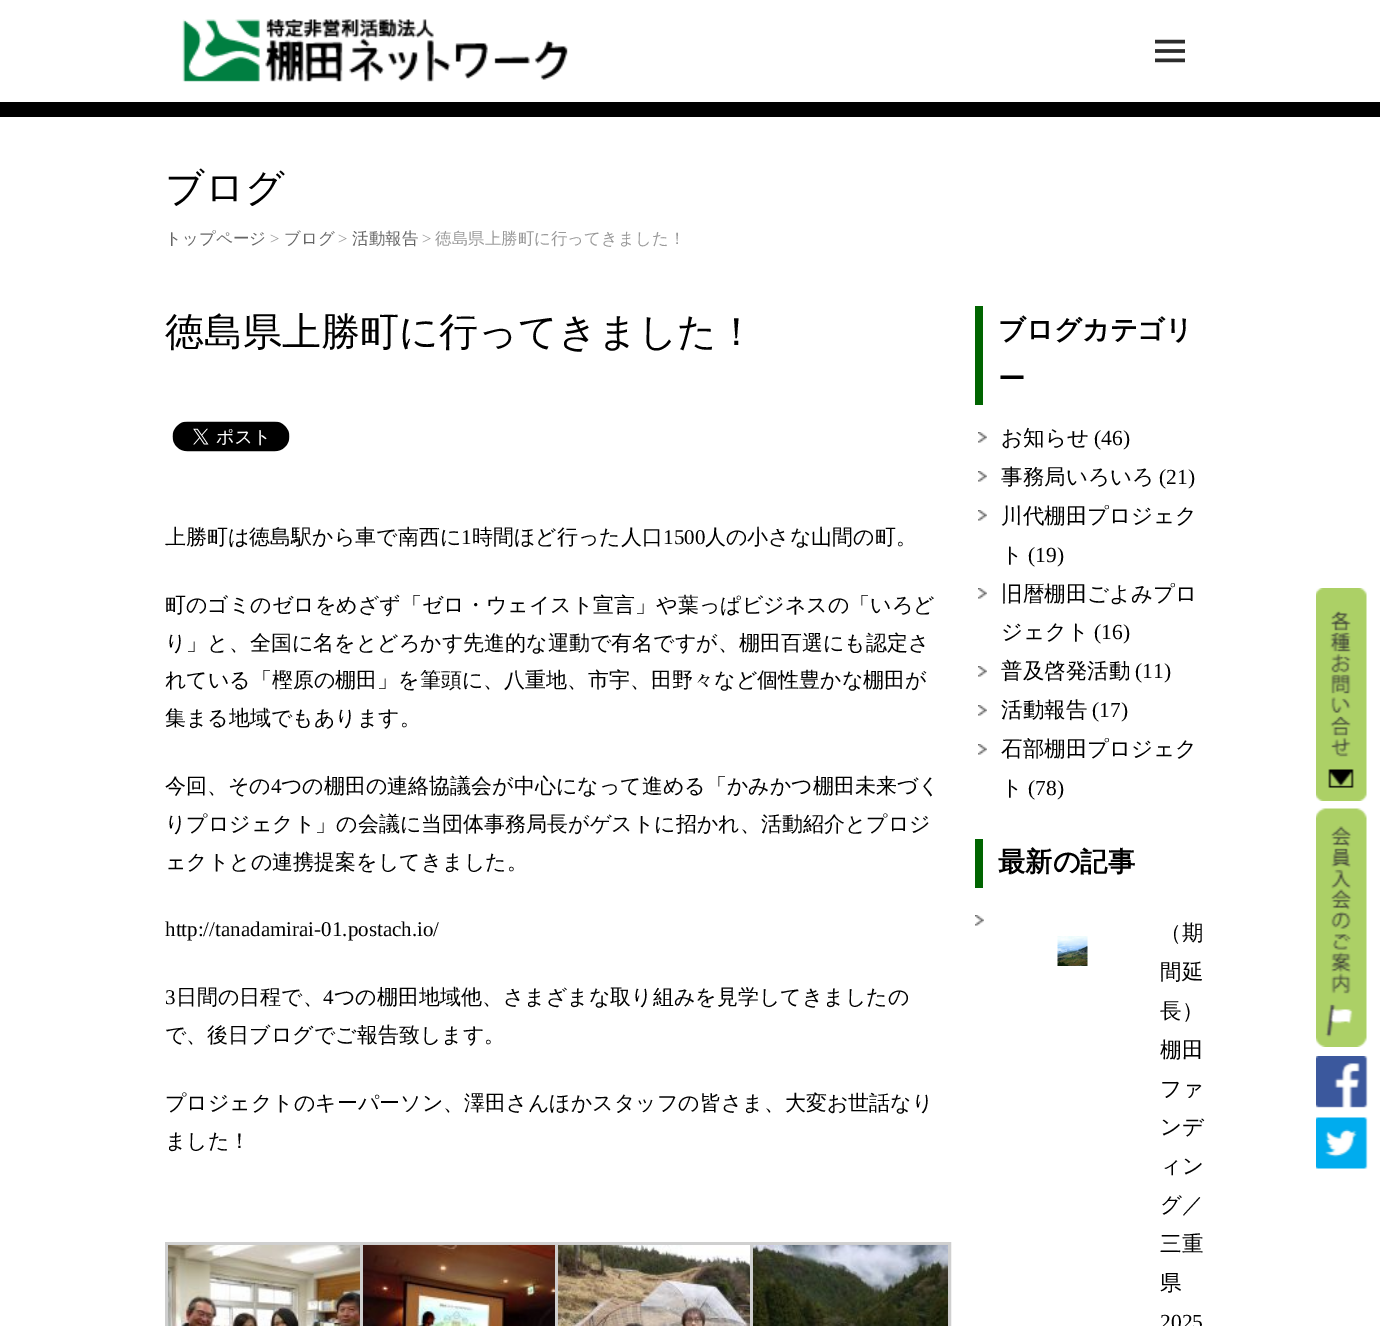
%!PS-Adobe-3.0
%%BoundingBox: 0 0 1380 1326
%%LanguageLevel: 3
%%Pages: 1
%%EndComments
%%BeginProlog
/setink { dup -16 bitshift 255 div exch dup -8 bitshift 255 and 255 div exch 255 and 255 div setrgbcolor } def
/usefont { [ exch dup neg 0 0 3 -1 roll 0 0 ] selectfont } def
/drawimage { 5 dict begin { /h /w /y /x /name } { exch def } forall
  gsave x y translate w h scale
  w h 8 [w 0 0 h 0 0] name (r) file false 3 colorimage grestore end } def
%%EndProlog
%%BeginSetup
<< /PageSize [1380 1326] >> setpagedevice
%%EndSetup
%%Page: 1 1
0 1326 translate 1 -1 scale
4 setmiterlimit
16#FFFFFF setink
0 0 1380 1326 rectfill
16#000000 setink
0 102 1380 15 rectfill
(img1.raw) 182 19 386 63 drawimage
(img2.raw) 1155 39 30 24 drawimage
/WenQuanYiZenHei-Medium 39 usefont
165 201 moveto (ブログ) show
/WenQuanYiZenHei-Medium 16.5 usefont
16#666666 setink
165 244 moveto (トップページ) show
/LiberationSerif-Regular 16.5 usefont
16#999999 setink
270 244 moveto (>) show
/WenQuanYiZenHei-Medium 16.5 usefont
16#666666 setink
284 244 moveto (ブログ) show
/LiberationSerif-Regular 16.5 usefont
16#999999 setink
338 244 moveto (>) show
/WenQuanYiZenHei-Medium 16.5 usefont
16#666666 setink
352 244 moveto (活動報告) show
/LiberationSerif-Regular 16.5 usefont
16#999999 setink
422 244 moveto (>) show
/WenQuanYiZenHei-Medium 16.5 usefont
435 244 moveto (徳島県上勝町に行ってきました！) show
/WenQuanYiZenHei-Medium 39 usefont
16#000000 setink
165 345 moveto (徳島県上勝町に行ってきました！) show
(img3.raw) 172 421 118 31 drawimage
/WenQuanYiZenHei-Medium 21 usefont
165 544 moveto (上勝町は徳島駅から車で南西に) show
/LiberationSerif-Regular 21 usefont
461 544 moveto (1) show
/WenQuanYiZenHei-Medium 21 usefont
472 544 moveto (時間ほど行った人口) show
/LiberationSerif-Regular 21 usefont
663 544 moveto (1500) show
/WenQuanYiZenHei-Medium 21 usefont
[
    [(人の小さな山間の町。) 705 544]
    [(町のゴミのゼロをめざず「ゼロ・ウェイスト宣言」や葉っぱビジネスの「いろど) 165 612]
    [(り」と、全国に名をとどろかす先進的な運動で有名ですが、棚田百選にも認定さ) 165 650]
    [(れている「樫原の棚田」を筆頭に、八重地、市宇、田野々など個性豊かな棚田が) 165 687]
    [(集まる地域でもあります。) 165 725]
    [(今回、その) 165 793]
] { aload pop moveto show } forall
/LiberationSerif-Regular 21 usefont
271 793 moveto (4) show
/WenQuanYiZenHei-Medium 21 usefont
[
    [(つの棚田の連絡協議会が中心になって進める「かみかつ棚田未来づく) 281 793]
    [(りプロジェクト」の会議に当団体事務局長がゲストに招かれ、活動紹介とプロジ) 165 831]
    [(ェクトとの連携提案をしてきました。) 165 869]
] { aload pop moveto show } forall
/LiberationSerif-Regular 21 usefont
165 936 moveto (http://tanadamirai-01.postach.io/) show
165 1004 moveto (3) show
/WenQuanYiZenHei-Medium 21 usefont
176 1004 moveto (日間の日程で、) show
/LiberationSerif-Regular 21 usefont
323 1004 moveto (4) show
/WenQuanYiZenHei-Medium 21 usefont
[
    [(つの棚田地域他、さまざまな取り組みを見学してきましたの) 334 1004]
    [(で、後日ブログでご報告致します。) 165 1042]
    [(プロジェクトのキーパーソン、澤田さんほかスタッフの皆さま、大変お世話なり) 165 1110]
    [(ました！) 165 1148]
] { aload pop moveto show } forall
16#CFCFCF setink
3 setlinewidth
166.5 1243.5 198 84 rectstroke
(img4.raw) 168 1245 192 81 drawimage
361.5 1243.5 198 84 rectstroke
(img5.raw) 363 1245 192 81 drawimage
556.5 1243.5 198 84 rectstroke
(img6.raw) 558 1245 192 81 drawimage
751.5 1243.5 198 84 rectstroke
(img7.raw) 753 1245 195 81 drawimage
16#006400 setink
975 306 8 99 rectfill
/WenQuanYiZenHei-Bold 27.25 usefont
16#000000 setink
998 339 moveto (ブログカテゴリ) show
998 388 moveto (ー) show
(img8.raw) 978 432 9 11 drawimage
/WenQuanYiZenHei-Medium 21.5 usefont
1001 445 moveto (お知らせ) show
/LiberationSerif-Regular 21.5 usefont
1094 445 moveto (\(46\)) show
(img8.raw) 978 471 9 11 drawimage
/WenQuanYiZenHei-Medium 21.5 usefont
1001 484 moveto (事務局いろいろ) show
/LiberationSerif-Regular 21.5 usefont
1159 484 moveto (\(21\)) show
(img8.raw) 978 510 9 11 drawimage
/WenQuanYiZenHei-Medium 21.5 usefont
1001 523 moveto (川代棚田プロジェク) show
1001 562 moveto (ト) show
/LiberationSerif-Regular 21.5 usefont
1028 562 moveto (\(19\)) show
(img8.raw) 978 588 9 11 drawimage
/WenQuanYiZenHei-Medium 21.5 usefont
1001 601 moveto (旧暦棚田ごよみプロ) show
1001 639 moveto (ジェクト) show
/LiberationSerif-Regular 21.5 usefont
1094 639 moveto (\(16\)) show
(img8.raw) 978 666 9 11 drawimage
/WenQuanYiZenHei-Medium 21.5 usefont
1001 678 moveto (普及啓発活動) show
/LiberationSerif-Regular 21.5 usefont
1135 678 moveto (\(11\)) show
(img8.raw) 978 705 9 11 drawimage
/WenQuanYiZenHei-Medium 21.5 usefont
1001 717 moveto (活動報告) show
/LiberationSerif-Regular 21.5 usefont
1092 717 moveto (\(17\)) show
(img8.raw) 978 744 9 11 drawimage
/WenQuanYiZenHei-Medium 21.5 usefont
1001 756 moveto (石部棚田プロジェク) show
1001 795 moveto (ト) show
/LiberationSerif-Regular 21.5 usefont
1028 795 moveto (\(78\)) show
16#006400 setink
975 839 8 49 rectfill
/WenQuanYiZenHei-Bold 27.25 usefont
16#000000 setink
998 871 moveto (最新の記事) show
(img8.raw) 975 915 9 11 drawimage
(img9.raw) 1057 936 31 30 drawimage
/WenQuanYiZenHei-Medium 21.5 usefont
[
    [(（期) 1160 940]
    [(間延) 1160 979]
    [(長）) 1160 1018]
    [(棚田) 1160 1057]
    [(ファ) 1160 1096]
    [(ンデ) 1160 1134]
    [(ィン) 1160 1173]
    [(グ／) 1160 1212]
    [(三重) 1160 1251]
    [(県) 1160 1290]
] { aload pop moveto show } forall
/LiberationSerif-Regular 21.5 usefont
1160 1329 moveto (2025) show
(img10.raw) 1316 588 51 213 drawimage
(img11.raw) 1316 808 51 239 drawimage
(img12.raw) 1316 1056 52 52 drawimage
(img13.raw) 1316 1117 52 52 drawimage
showpage
%%EOF
